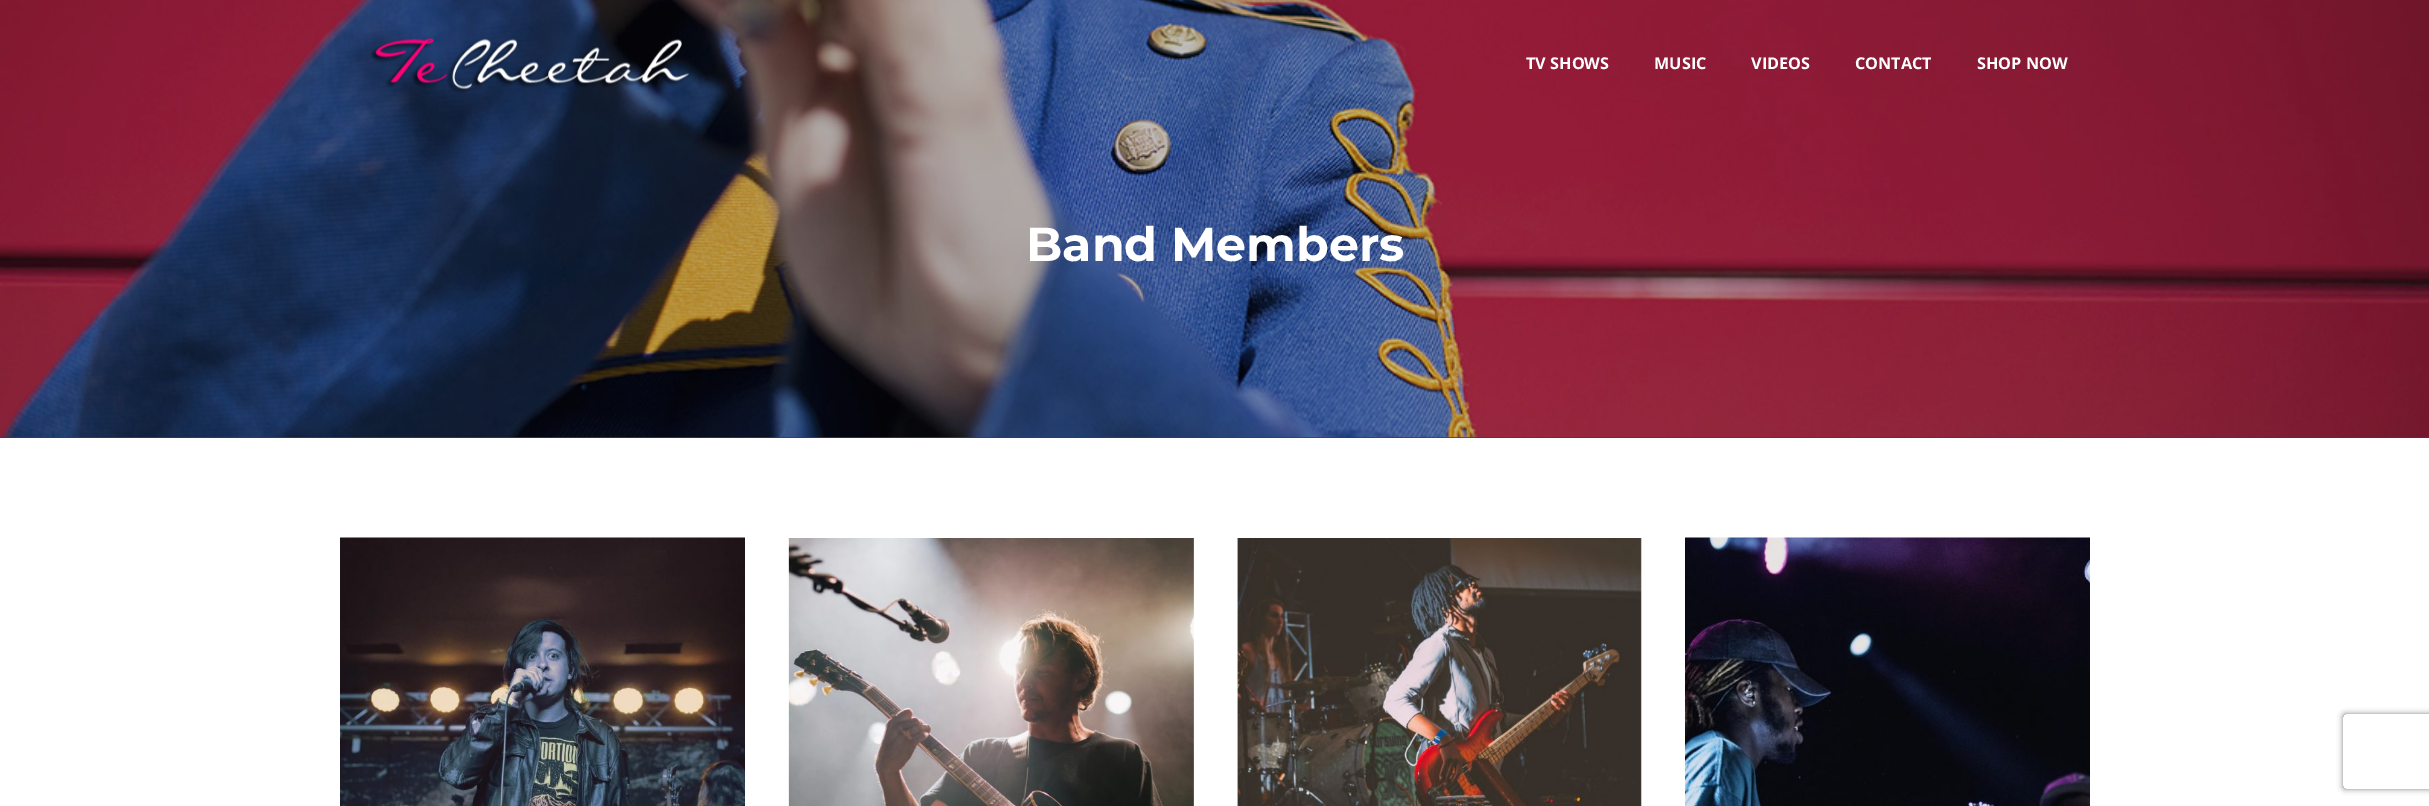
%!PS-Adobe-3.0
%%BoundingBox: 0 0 2429 806
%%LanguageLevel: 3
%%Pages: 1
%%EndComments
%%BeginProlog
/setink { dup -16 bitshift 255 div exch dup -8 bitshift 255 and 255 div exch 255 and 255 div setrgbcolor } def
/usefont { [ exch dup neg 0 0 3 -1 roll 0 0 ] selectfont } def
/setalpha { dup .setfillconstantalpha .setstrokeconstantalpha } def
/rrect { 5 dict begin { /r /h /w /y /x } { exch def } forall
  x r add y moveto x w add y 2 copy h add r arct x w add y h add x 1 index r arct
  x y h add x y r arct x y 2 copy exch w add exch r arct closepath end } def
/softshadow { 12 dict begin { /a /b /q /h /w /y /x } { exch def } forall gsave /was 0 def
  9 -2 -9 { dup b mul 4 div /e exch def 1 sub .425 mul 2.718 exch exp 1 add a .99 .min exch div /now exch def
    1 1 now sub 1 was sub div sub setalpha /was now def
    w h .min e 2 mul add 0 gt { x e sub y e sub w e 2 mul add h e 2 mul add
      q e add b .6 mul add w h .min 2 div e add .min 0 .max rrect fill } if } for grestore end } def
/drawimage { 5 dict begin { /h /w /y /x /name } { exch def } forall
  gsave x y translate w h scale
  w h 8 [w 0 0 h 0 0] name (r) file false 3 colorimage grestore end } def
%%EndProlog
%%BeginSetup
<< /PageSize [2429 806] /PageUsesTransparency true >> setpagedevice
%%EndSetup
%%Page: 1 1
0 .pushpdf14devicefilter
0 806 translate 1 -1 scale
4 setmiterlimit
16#622C41 setink
0 0 2429 806 rectfill
(img2.raw) 0 0 2429 438 drawimage
(img1.raw) 370 38 319 56 drawimage
/OpenSans-Bold 16.25 usefont
16#FFFFFF setink
[
    [(TV SHOWS) 1526 69]
    [(MUSIC) 1654 69]
    [(VIDEOS) 1751 69]
    [(CONTACT) 1855 69]
    [(SHOP NOW) 1977 69]
] { aload pop moveto show } forall
/Montserrat-Bold 47.5 usefont
1026 261 moveto (Band Members) show
0 438 2429 368 rectfill
(img3.raw) 340 537 405 269 drawimage
(img4.raw) 788 538 406 268 drawimage
(img5.raw) 1237 538 405 268 drawimage
(img6.raw) 1685 537 405 269 drawimage
gsave
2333 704 moveto 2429 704 lineto 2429 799 lineto 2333 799 lineto closepath 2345.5 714 moveto 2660.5 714 lineto 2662 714 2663 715 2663 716.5 curveto 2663 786.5 lineto 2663 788 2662 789 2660.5 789 curveto 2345.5 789 lineto 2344 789 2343 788 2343 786.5 curveto 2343 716.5 lineto 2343 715 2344 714 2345.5 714 curveto closepath eoclip newpath
16#808080 setink
2343 714 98 75 2.5 3 1 softshadow
grestore
.poppdf14devicefilter showpage
%%EOF
